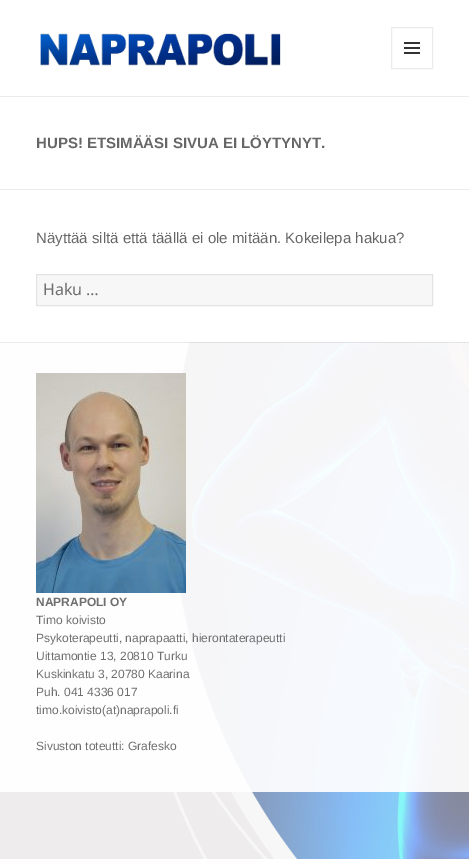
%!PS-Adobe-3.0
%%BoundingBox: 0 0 469 859
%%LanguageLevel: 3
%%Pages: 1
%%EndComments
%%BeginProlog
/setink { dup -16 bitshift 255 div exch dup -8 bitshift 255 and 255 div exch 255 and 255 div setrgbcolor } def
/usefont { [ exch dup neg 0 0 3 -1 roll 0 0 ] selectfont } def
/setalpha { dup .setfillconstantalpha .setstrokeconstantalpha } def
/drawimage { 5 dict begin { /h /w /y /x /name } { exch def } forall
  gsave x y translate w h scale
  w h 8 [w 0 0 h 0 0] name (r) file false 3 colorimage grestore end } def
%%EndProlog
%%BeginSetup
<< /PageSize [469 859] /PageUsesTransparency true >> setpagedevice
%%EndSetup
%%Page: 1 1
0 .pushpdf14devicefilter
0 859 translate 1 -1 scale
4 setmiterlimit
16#F1F1F1 setink
0 0 469 859 rectfill
16#FFFFFF setink
0 0 469 96 rectfill
16#EBEBEB setink
0 96 469 1 rectfill
(img1.raw) 40 33 241 33 drawimage
391.5 27.5 41 41 rectstroke
(img2.raw) 404 42 16 12 drawimage
16#FFFFFF setink
0 97 469 92 rectfill
16#EBEBEB setink
0 189 469 1 rectfill
/LiberationSans-Bold 15 usefont
16#666666 setink
36 148 moveto (HUPS! ETSIMÄÄSI SIVUA EI LÖYTYNYT.) show
16#FFFFFF setink
0 190 469 152 rectfill
/LiberationSans-Regular 15 usefont
16#666666 setink
36 243 moveto (Näyttää siltä että täällä ei ole mitään. Kokeilepa hakua?) show
16#F7F7F7 setink
36.5 274.5 moveto 432.5 274.5 lineto 432.5 305.5 lineto 36.5 305.5 lineto closepath gsave fill grestore
16#E3E3E3 setink
stroke
/NotoSans-Regular 16 usefont
16#6E6E6E setink
43 295 moveto (Haku …) show
(img4.raw) 0 342 469 517 drawimage
0.92 setalpha
16#FFFFFF setink
0 342 469 450 rectfill
0.1 setalpha
16#333333 setink
0 342 469 1 rectfill
1 setalpha
(img3.raw) 36 373 150 220 drawimage
/LiberationSans-Bold 12 usefont
16#6E6E6E setink
36 606 moveto (NAPRAPOLI OY) show
/LiberationSans-Regular 12 usefont
[
    [(Timo koivisto) 36 624]
    [(Psykoterapeutti, naprapaatti, hierontaterapeutti) 36 642]
    [(Uittamontie 13, 20810 Turku) 36 660]
    [(Kuskinkatu 3, 20780 Kaarina) 36 678]
    [(Puh. 041 4336 017) 36 696]
    [(timo.koivisto\(at\)naprapoli.fi) 36 714]
    [(Sivuston toteutti: Grafesko) 36 750]
] { aload pop moveto show } forall
.poppdf14devicefilter showpage
%%EOF
